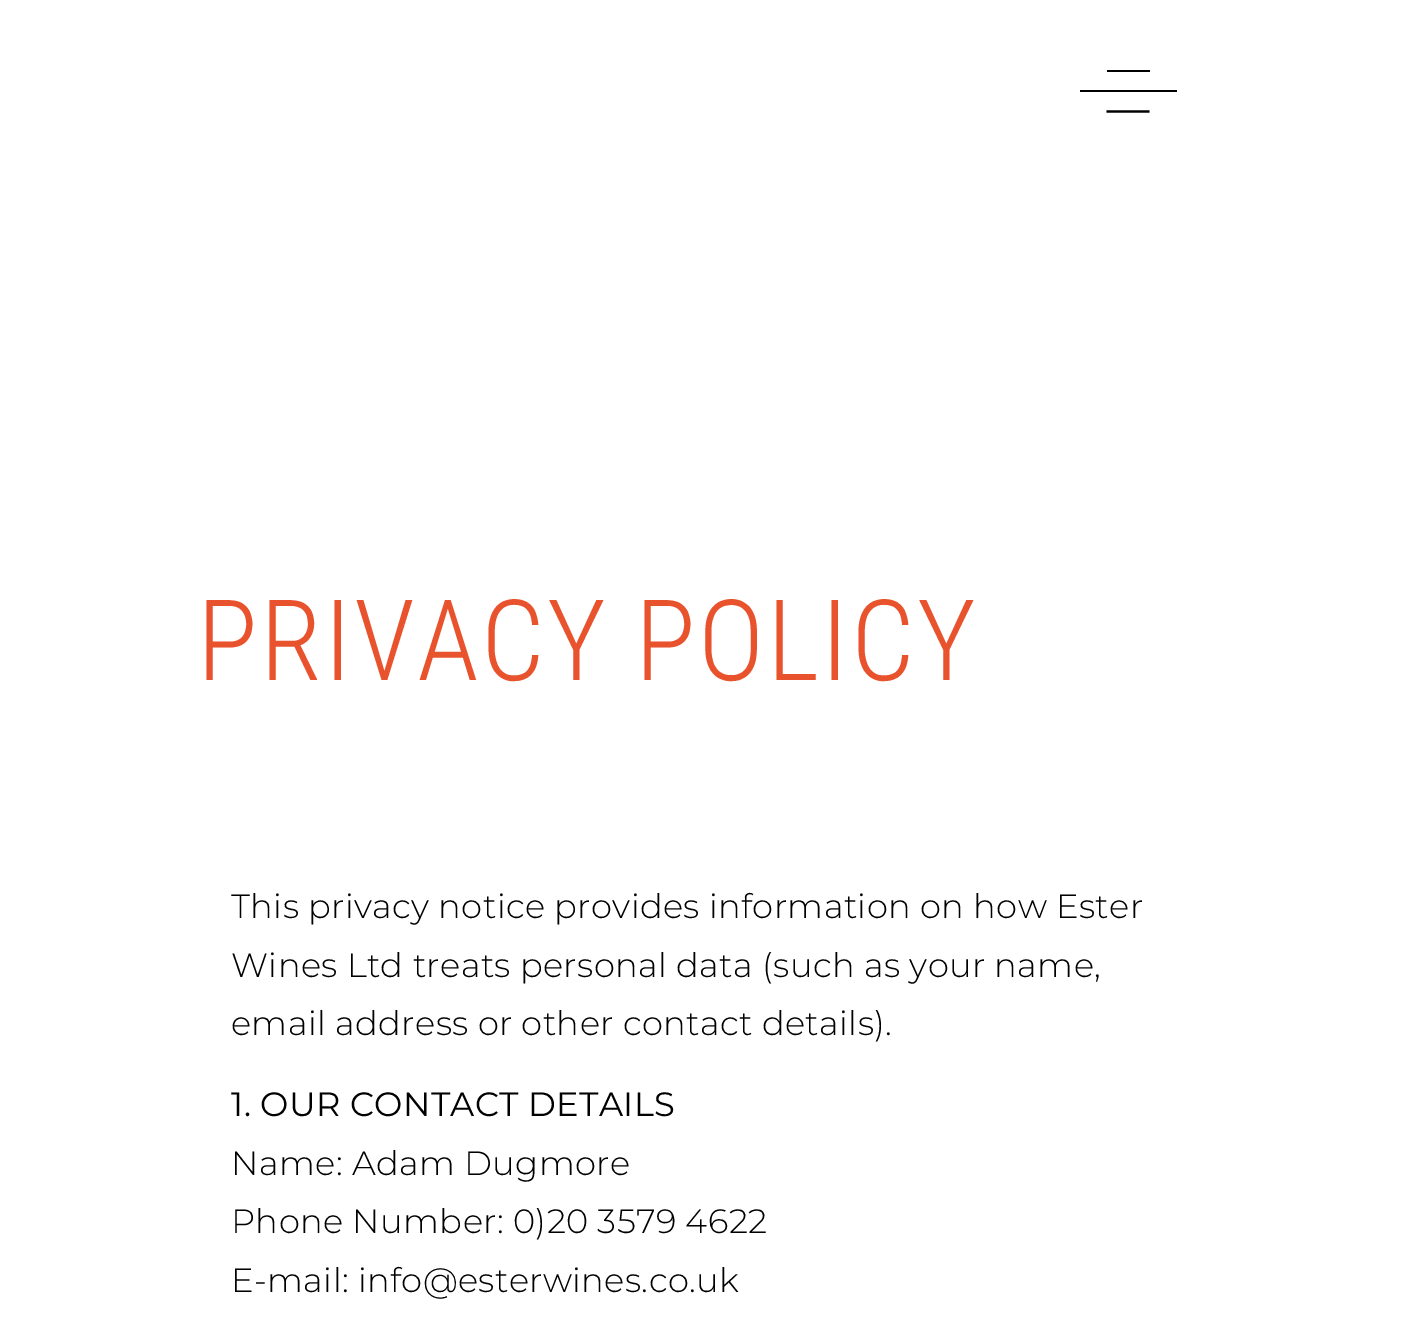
%!PS-Adobe-3.0
%%BoundingBox: 0 0 1406 1332
%%LanguageLevel: 3
%%Pages: 1
%%EndComments
%%BeginProlog
/setink { dup -16 bitshift 255 div exch dup -8 bitshift 255 and 255 div exch 255 and 255 div setrgbcolor } def
/usefont { [ exch dup neg 0 0 3 -1 roll 0 0 ] selectfont } def
%%EndProlog
%%BeginSetup
<< /PageSize [1406 1332] >> setpagedevice
%%EndSetup
%%Page: 1 1
0 1332 translate 1 -1 scale
4 setmiterlimit
16#FFFFFF setink
0 0 1406 1332 rectfill
16#000000 setink
1107 70 43 2 rectfill
1080 90 97 2 rectfill
2.2 setlinewidth
1106.5 111.5 moveto 1149.5 111.5 lineto stroke
/RobotoCondensed-Light 112.5 usefont
16#E8522C setink
197 680 moveto 2.25 0 (PRIVACY POLICY) ashow
/Montserrat-Light 33.75 usefont
16#000000 setink
231 918 moveto 0.35 0 (This privacy notice provides information on how Ester) ashow
231 977 moveto 0.35 0 (Wines Ltd treats personal data \(such as your name,) ashow
231 1035 moveto 0.35 0 (email address or other contact details\).) ashow
/Montserrat-Regular 33.75 usefont
231 1116 moveto 0.35 0 (1. OUR CONTACT DETAILS) ashow
/Montserrat-Light 33.75 usefont
231 1175 moveto 0.35 0 (Name: Adam Dugmore) ashow
231 1233 moveto 0.35 0 (Phone Number: 0\)20 3579 4622) ashow
231 1292 moveto 0.35 0 (E-mail: info@esterwines.co.uk) ashow
showpage
%%EOF
